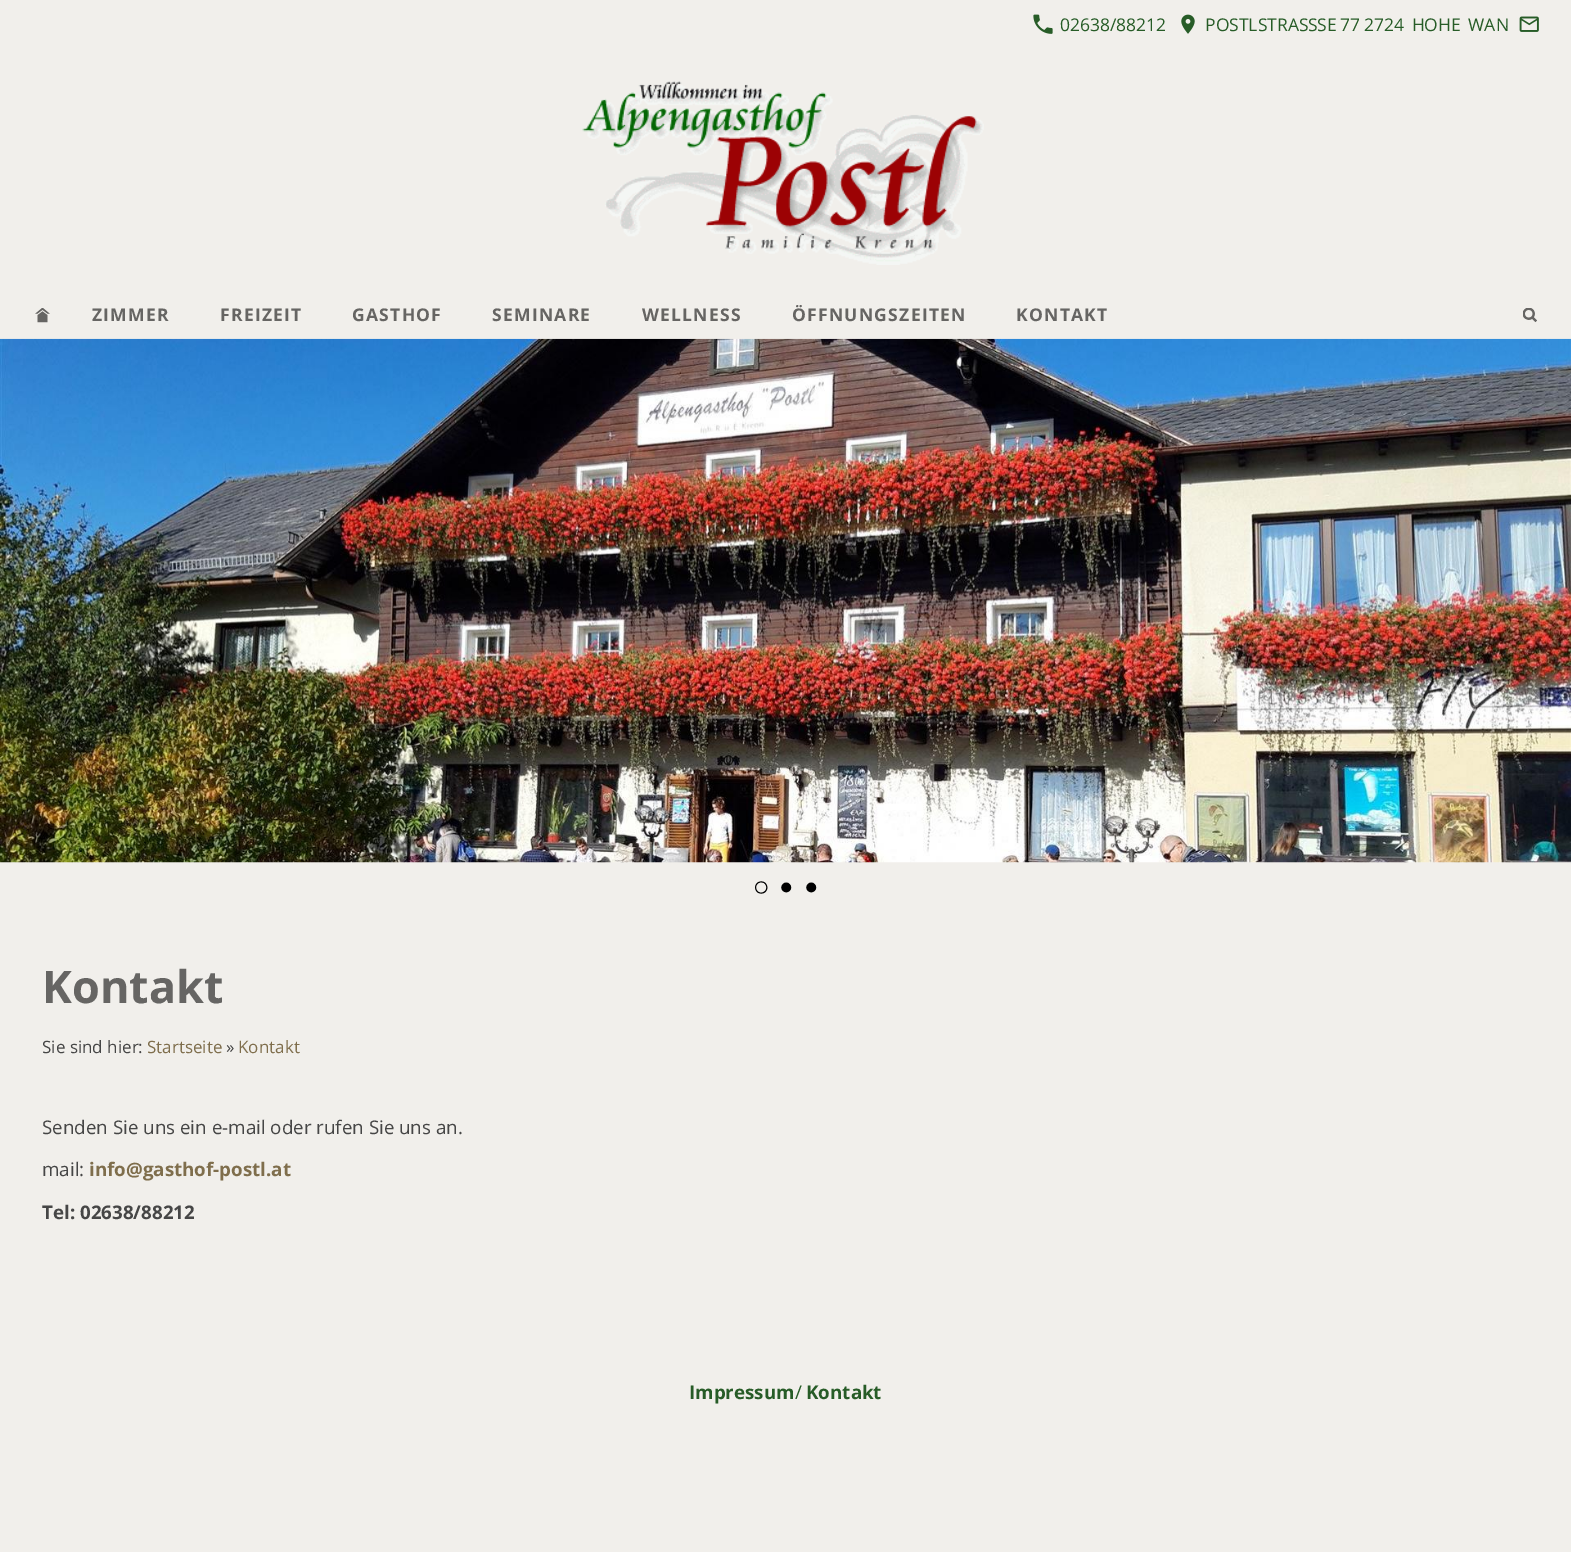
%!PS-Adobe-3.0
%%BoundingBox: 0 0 1571 1552
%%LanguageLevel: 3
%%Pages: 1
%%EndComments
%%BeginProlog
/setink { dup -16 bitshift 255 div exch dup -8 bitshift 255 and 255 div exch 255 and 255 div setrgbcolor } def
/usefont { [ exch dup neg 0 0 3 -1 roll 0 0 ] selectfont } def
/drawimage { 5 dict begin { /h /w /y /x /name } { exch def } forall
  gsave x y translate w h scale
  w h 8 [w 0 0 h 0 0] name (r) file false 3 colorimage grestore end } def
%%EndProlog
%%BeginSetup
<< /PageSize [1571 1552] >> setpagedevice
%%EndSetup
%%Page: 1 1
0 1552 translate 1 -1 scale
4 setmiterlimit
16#F1EFEB setink
0 0 1571 1552 rectfill
(img1.raw) 1033 14 20 20 drawimage
/OpenSans-Regular 17.5 usefont
16#275C27 setink
1060 31 moveto (02638/88212) show
(img2.raw) 1181 14 14 20 drawimage
1205 31 moveto (POSTLSTRASS) show
1317 31 moveto -1 0 32 (SE 77) widthshow
1364 31 moveto 3 0 32 (2724 HOHE WAN) widthshow
(img3.raw) 1519 16 20 16 drawimage
(img4.raw) 582 81 402 184 drawimage
(img5.raw) 35 308 15 15 drawimage
/OpenSans-Bold 17.5 usefont
16#666563 setink
92 321 moveto 1.25 0 (ZIMMER) ashow
220 321 moveto 1.25 0 (FREIZEIT) ashow
352 321 moveto 1.25 0 (GASTHOF) ashow
492 321 moveto 1.25 0 (SEMINARE) ashow
642 321 moveto 1.25 0 (WELLNESS) ashow
792 321 moveto 1.25 0 (ÖFFNUNGSZEITEN) ashow
1016 321 moveto 1.25 0 (KONTAKT) ashow
(img6.raw) 1523 308 14 15 drawimage
(img7.raw) 0 338 1571 525 drawimage
(img8.raw) 755 881 13 13 drawimage
(img9.raw) 781 882 11 11 drawimage
(img9.raw) 806 882 11 11 drawimage
/OpenSans-Bold 45 usefont
42 1003 moveto (Kontakt) show
/OpenSans-Regular 17 usefont
16#464646 setink
42 1053 moveto (Sie sind hier:) show
16#7F6E4C setink
147 1053 moveto (Startseite) show
16#464646 setink
226 1053 moveto (») show
16#7F6E4C setink
238 1053 moveto (Kontakt) show
/OpenSans-Regular 18.75 usefont
16#464646 setink
42 1134 moveto (Senden Sie uns ein e-mail oder rufen Sie uns an.) show
42 1176 moveto (mail:) show
/OpenSans-Bold 18.75 usefont
16#7F6E4C setink
89 1176 moveto (info@gasthof-postl.at) show
16#464646 setink
42 1219 moveto (Tel: 02638/88212) show
16#275C27 setink
689 1399 moveto (Impressum) show
/OpenSans-Regular 18.75 usefont
795 1399 moveto (/) show
/OpenSans-Bold 18.75 usefont
806 1399 moveto (Kontakt) show
showpage
%%EOF
